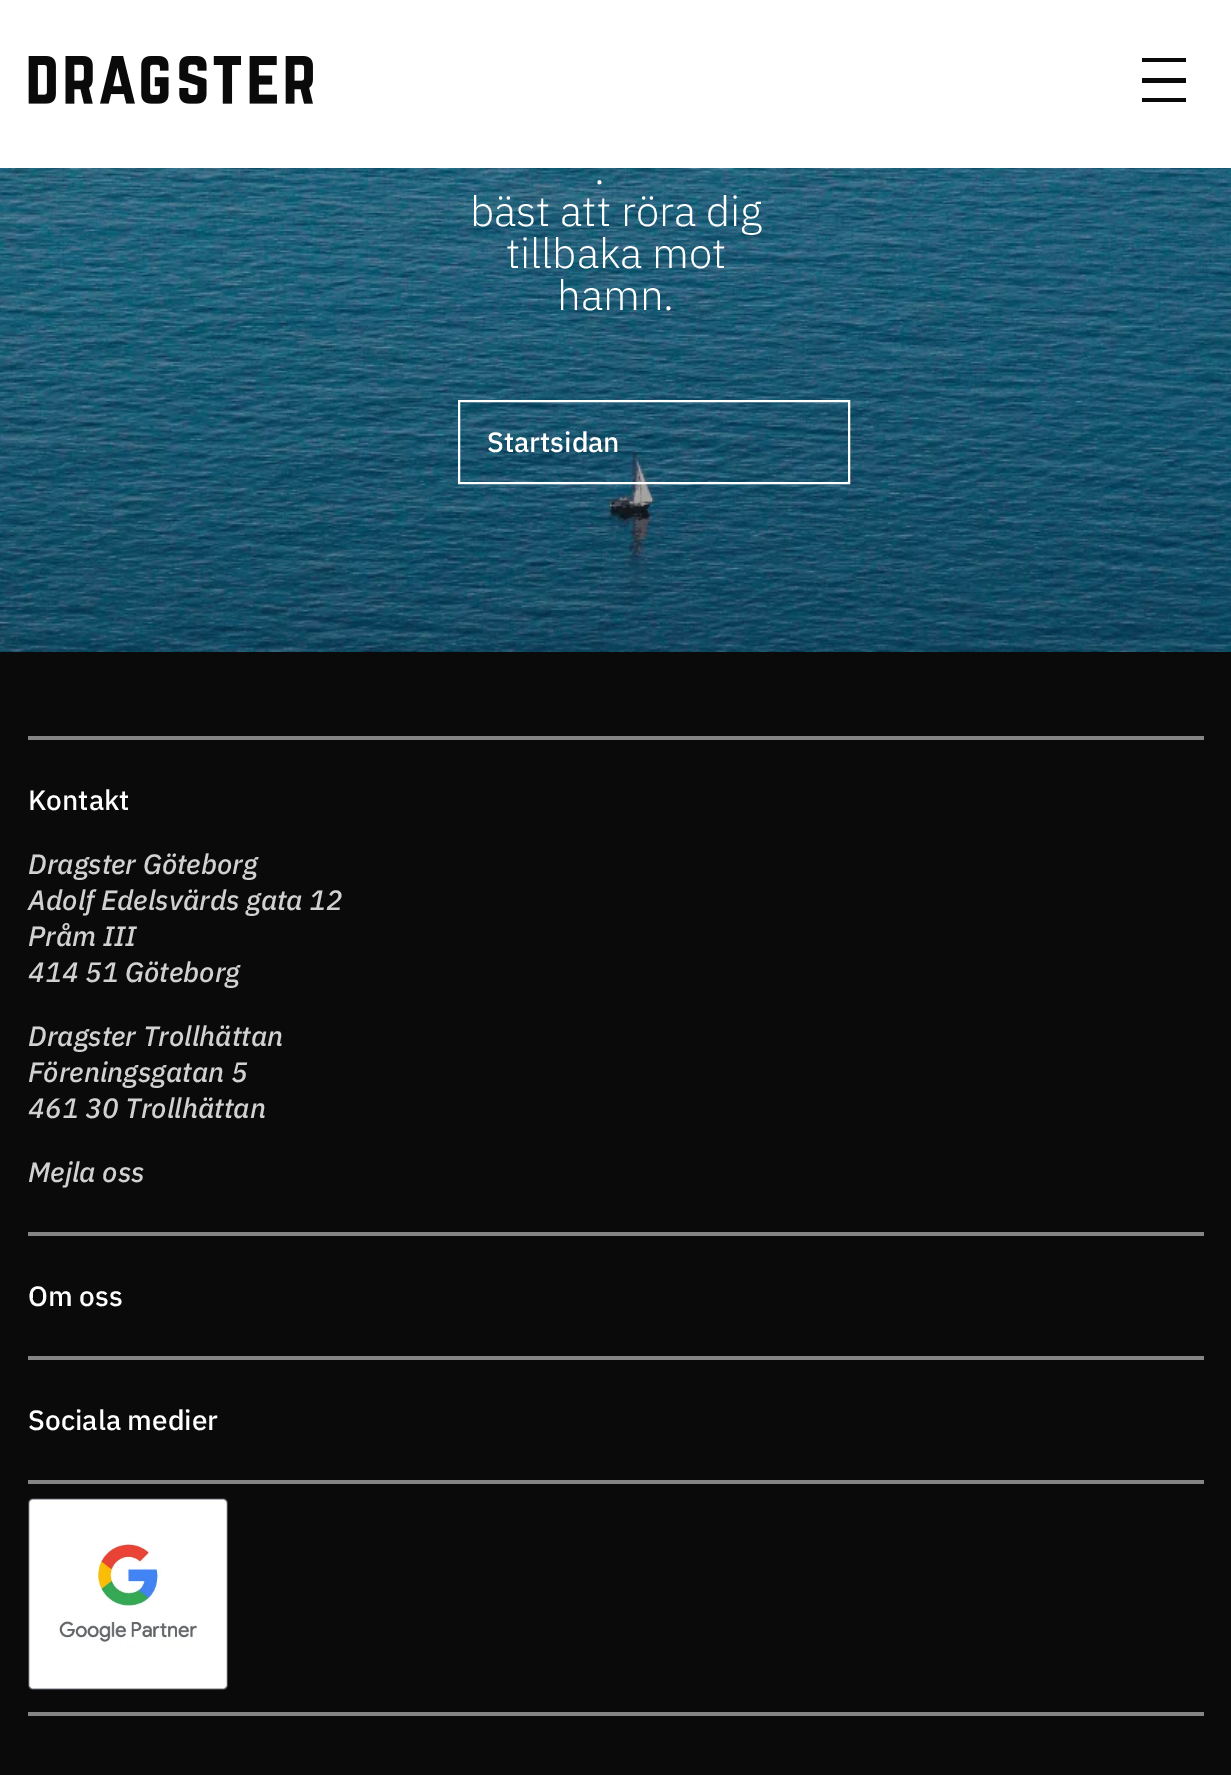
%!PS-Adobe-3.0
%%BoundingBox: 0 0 1231 1775
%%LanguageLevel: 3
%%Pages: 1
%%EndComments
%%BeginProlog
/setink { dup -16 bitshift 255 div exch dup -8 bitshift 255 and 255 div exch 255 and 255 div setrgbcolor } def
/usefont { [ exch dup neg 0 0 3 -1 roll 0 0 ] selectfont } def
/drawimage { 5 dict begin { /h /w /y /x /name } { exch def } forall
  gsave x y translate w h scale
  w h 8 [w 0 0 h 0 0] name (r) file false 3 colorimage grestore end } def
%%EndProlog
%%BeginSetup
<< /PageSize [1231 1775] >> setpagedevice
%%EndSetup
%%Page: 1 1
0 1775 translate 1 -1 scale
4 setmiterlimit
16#FFFFFF setink
0 0 1231 1775 rectfill
(img1.raw) 28 56 285 48 drawimage
[
    [1142 58 44 4 16#0A0A0A]
    [1142 78 44 5 16#0A0A0A]
    [1142 98 44 4 16#0A0A0A]
] { aload pop setink rectfill } forall
(img2.raw) 0 168 1231 484 drawimage
/IBMPlexSans-Light 42 usefont
16#FFFFFF setink
[
    [(.) 594 184]
    [(bäst att röra dig) 470 226]
    [(tillbaka mot) 506 268]
    [(hamn.) 557 310]
] { aload pop moveto show } forall
2 setlinewidth
459 401 390 82 rectstroke
/IBMPlexSans-Medium 28 usefont
487 452 moveto (Startsidan) show
[
    [0 652 1231 1123 16#0A0A0A]
    [28 736 1176 4 16#858585]
    [28 1232 1176 4 16#858585]
] { aload pop setink rectfill } forall
16#FFFFFF setink
28 810 moveto (Kontakt) show
/IBMPlexSans-MediumItalic 28 usefont
16#D1D1D1 setink
[
    [(Dragster Göteborg) 28 874]
    [(Adolf Edelsvärds gata 12) 28 910]
    [(Pråm III) 28 946]
    [(414 51 Göteborg) 28 982]
    [(Dragster Trollhättan) 28 1046]
    [(Föreningsgatan 5) 28 1082]
    [(461 30 Trollhättan) 28 1118]
    [(Mejla oss) 28 1182]
] { aload pop moveto show } forall
16#858585 setink
28 1356 1176 4 rectfill
/IBMPlexSans-Medium 28 usefont
16#FFFFFF setink
28 1306 moveto (Om oss) show
16#858585 setink
28 1480 1176 4 rectfill
16#FFFFFF setink
28 1430 moveto (Sociala medier) show
16#858585 setink
28 1712 1176 4 rectfill
(img3.raw) 28 1498 200 192 drawimage
showpage
%%EOF
